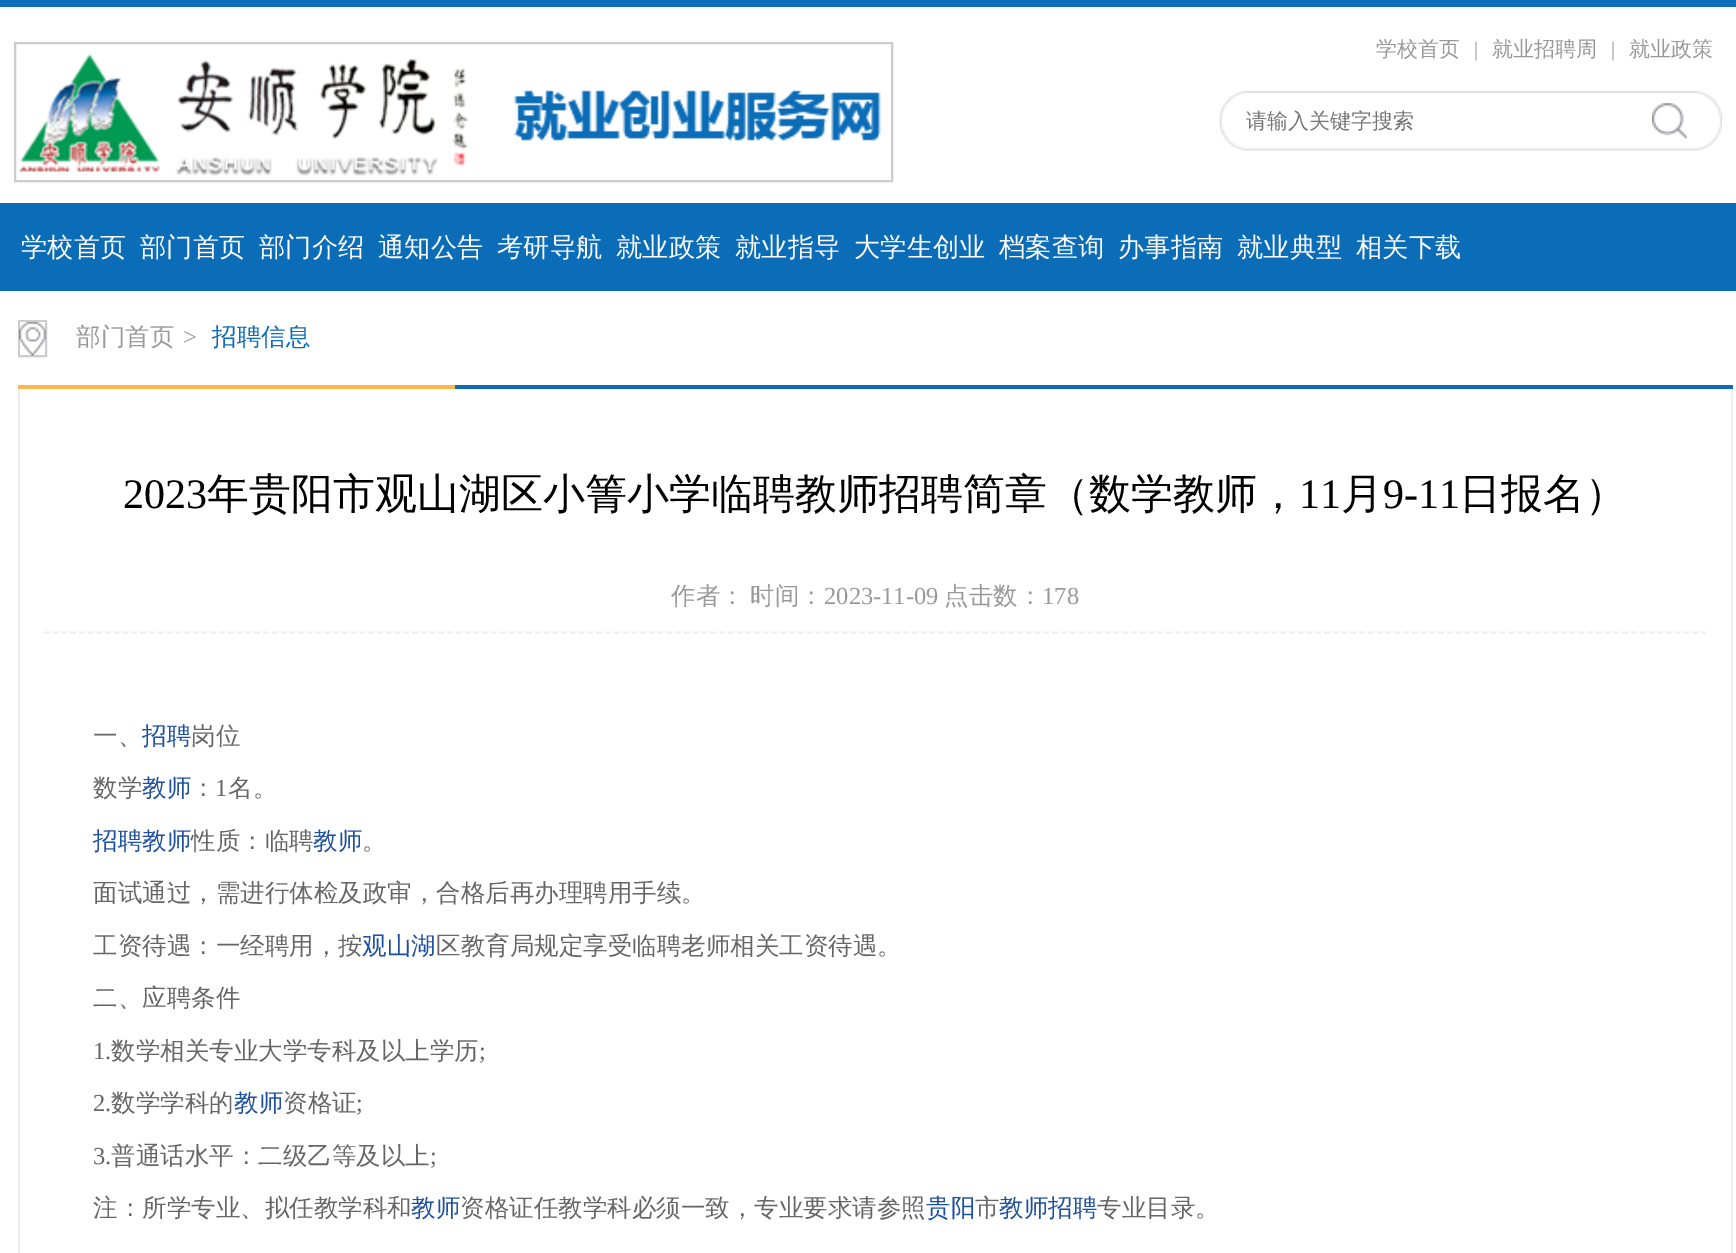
%!PS-Adobe-3.0
%%BoundingBox: 0 0 1736 1253
%%LanguageLevel: 3
%%Pages: 1
%%EndComments
%%BeginProlog
/setink { dup -16 bitshift 255 div exch dup -8 bitshift 255 and 255 div exch 255 and 255 div setrgbcolor } def
/usefont { [ exch dup neg 0 0 3 -1 roll 0 0 ] selectfont } def
/drawimage { 5 dict begin { /h /w /y /x /name } { exch def } forall
  gsave x y translate w h scale
  w h 8 [w 0 0 h 0 0] name (r) file false 3 colorimage grestore end } def
%%EndProlog
%%BeginSetup
<< /PageSize [1736 1253] >> setpagedevice
%%EndSetup
%%Page: 1 1
0 1253 translate 1 -1 scale
4 setmiterlimit
16#FFFFFF setink
0 0 1736 1253 rectfill
16#0D6DB9 setink
0 0 1736 7 rectfill
16#CCCCCC setink
2 setlinewidth
15 43 877 138 rectstroke
(img1.raw) 19 54 862 122 drawimage
/WenQuanYiZenHei-Medium 21 usefont
16#999999 setink
1376 56 moveto (学校首页) show
/LiberationSerif-Regular 21 usefont
1474 56 moveto (|) show
/WenQuanYiZenHei-Medium 21 usefont
1492 56 moveto (就业招聘周) show
/LiberationSerif-Regular 21 usefont
1611 56 moveto (|) show
/WenQuanYiZenHei-Medium 21 usefont
1629 56 moveto (就业政策) show
(img2.raw) 1219 91 503 60 drawimage
16#757575 setink
1246 128 moveto (请输入关键字搜索) show
(img3.raw) 1652 103 35 36 drawimage
16#0B6CB8 setink
0 203 1736 88 rectfill
/WenQuanYiZenHei-Medium 26.25 usefont
16#FFFFFF setink
[
    [(学校首页) 21 256]
    [(部门首页) 140 256]
    [(部门介绍) 259 256]
    [(通知公告) 378 256]
    [(考研导航) 497 256]
    [(就业政策) 616 256]
    [(就业指导) 735 256]
    [(大学生创业) 854 256]
    [(档案查询) 999 256]
    [(办事指南) 1118 256]
    [(就业典型) 1237 256]
    [(相关下载) 1356 256]
] { aload pop moveto show } forall
16#0B6CB8 setink
455 385 1278 4 rectfill
16#FFB64D setink
18 385 437 4 rectfill
16#CCCCCC setink
19 321 27 35 rectstroke
(img4.raw) 19 322 27 34 drawimage
/WenQuanYiZenHei-Medium 24.5 usefont
16#999999 setink
76 345 moveto (部门首页) show
/LiberationSerif-Regular 24.5 usefont
183 345 moveto (>) show
/WenQuanYiZenHei-Medium 24.5 usefont
16#0B6CB8 setink
212 345 moveto (招聘信息) show
16#EEEEEE setink
1731 389 2 864 rectfill
18 389 2 864 rectfill
1.8 setlinewidth
[5.25 3.52] 0 setdash
44 632.5 moveto 1706 632.5 lineto stroke
/LiberationSerif-Regular 42 usefont
16#000000 setink
123 508 moveto (2023) show
/WenQuanYiZenHei-Medium 42 usefont
207 508 moveto (年贵阳市观山湖区小箐小学临聘教师招聘简章（数学教师，) show
/LiberationSerif-Regular 42 usefont
1299 508 moveto (11) show
/WenQuanYiZenHei-Medium 42 usefont
1341 508 moveto (月) show
/LiberationSerif-Regular 42 usefont
1383 508 moveto (9-11) show
/WenQuanYiZenHei-Medium 42 usefont
1459 508 moveto (日报名）) show
/WenQuanYiZenHei-Medium 24.5 usefont
16#999999 setink
671 604 moveto (作者：) show
750 604 moveto (时间：) show
/LiberationSerif-Regular 24.5 usefont
824 604 moveto (2023-11-09) show
/WenQuanYiZenHei-Medium 24.5 usefont
944 604 moveto (点击数：) show
/LiberationSerif-Regular 24.5 usefont
1042 604 moveto (178) show
/WenQuanYiZenHei-Medium 24.5 usefont
16#666666 setink
93 744 moveto (一、) show
16#1E50A2 setink
142 744 moveto (招聘) show
16#666666 setink
191 744 moveto (岗位) show
93 796 moveto (数学) show
16#1E50A2 setink
142 796 moveto (教师) show
16#666666 setink
191 796 moveto (：) show
/LiberationSerif-Regular 24.5 usefont
215 796 moveto (1) show
/WenQuanYiZenHei-Medium 24.5 usefont
228 796 moveto (名。) show
16#1E50A2 setink
93 849 moveto (招聘教师) show
16#666666 setink
191 849 moveto (性质：临聘) show
16#1E50A2 setink
313 849 moveto (教师) show
16#666666 setink
[
    [(。) 362 849]
    [(面试通过，需进行体检及政审，合格后再办理聘用手续。) 93 901]
    [(工资待遇：一经聘用，按) 93 954]
] { aload pop moveto show } forall
16#1E50A2 setink
362 954 moveto (观山湖) show
16#666666 setink
436 954 moveto (区教育局规定享受临聘老师相关工资待遇。) show
93 1006 moveto (二、应聘条件) show
/LiberationSerif-Regular 24.5 usefont
93 1059 moveto (1.) show
/WenQuanYiZenHei-Medium 24.5 usefont
111 1059 moveto (数学相关专业大学专科及以上学历) show
/LiberationSerif-Regular 24.5 usefont
479 1059 moveto (;) show
93 1111 moveto (2.) show
/WenQuanYiZenHei-Medium 24.5 usefont
111 1111 moveto (数学学科的) show
16#1E50A2 setink
234 1111 moveto (教师) show
16#666666 setink
283 1111 moveto (资格证) show
/LiberationSerif-Regular 24.5 usefont
356 1111 moveto (;) show
93 1164 moveto (3.) show
/WenQuanYiZenHei-Medium 24.5 usefont
111 1164 moveto (普通话水平：二级乙等及以上) show
/LiberationSerif-Regular 24.5 usefont
430 1164 moveto (;) show
/WenQuanYiZenHei-Medium 24.5 usefont
93 1216 moveto (注：所学专业、拟任教学科和) show
16#1E50A2 setink
411 1216 moveto (教师) show
16#666666 setink
460 1216 moveto (资格证任教学科必须一致，专业要求请参照) show
16#1E50A2 setink
926 1216 moveto (贵阳) show
16#666666 setink
975 1216 moveto (市) show
16#1E50A2 setink
999 1216 moveto (教师招聘) show
16#666666 setink
1097 1216 moveto (专业目录。) show
showpage
%%EOF
